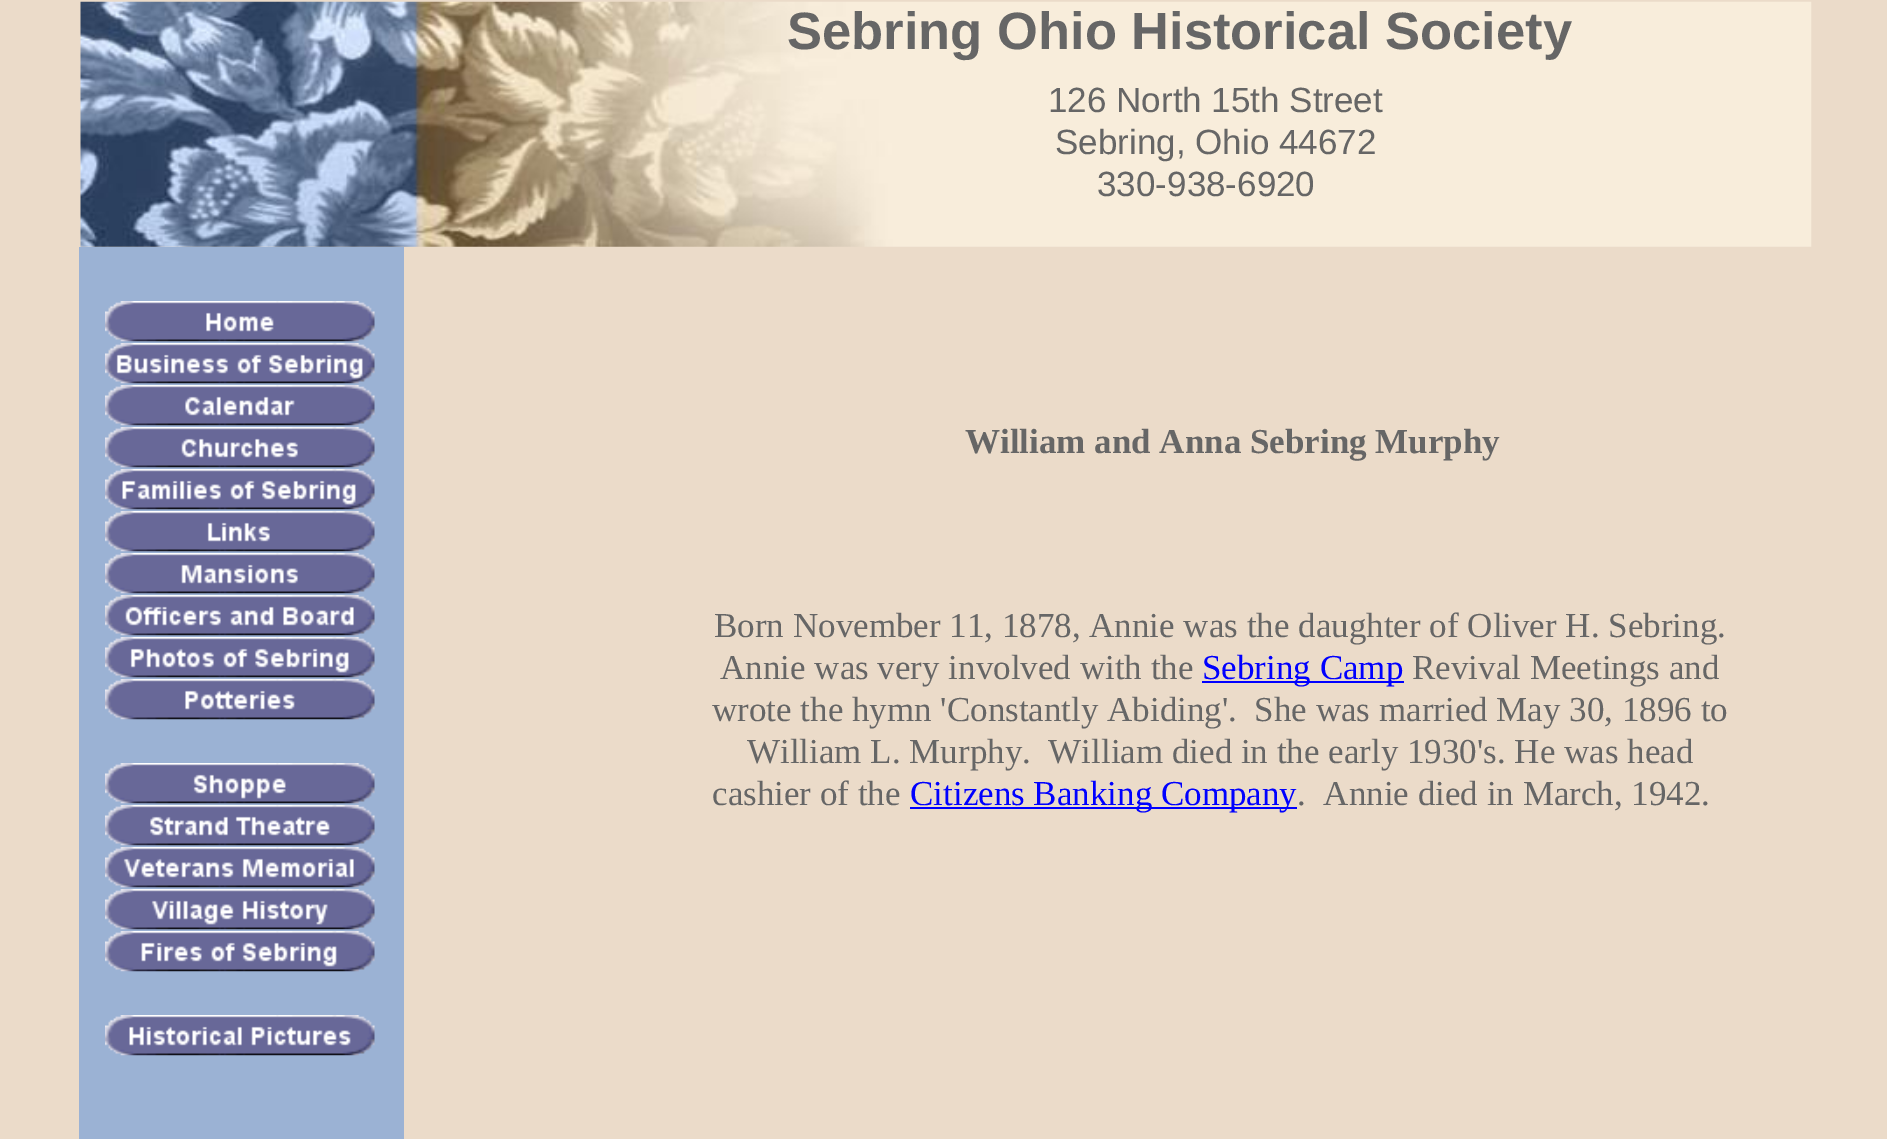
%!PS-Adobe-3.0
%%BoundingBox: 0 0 1887 1139
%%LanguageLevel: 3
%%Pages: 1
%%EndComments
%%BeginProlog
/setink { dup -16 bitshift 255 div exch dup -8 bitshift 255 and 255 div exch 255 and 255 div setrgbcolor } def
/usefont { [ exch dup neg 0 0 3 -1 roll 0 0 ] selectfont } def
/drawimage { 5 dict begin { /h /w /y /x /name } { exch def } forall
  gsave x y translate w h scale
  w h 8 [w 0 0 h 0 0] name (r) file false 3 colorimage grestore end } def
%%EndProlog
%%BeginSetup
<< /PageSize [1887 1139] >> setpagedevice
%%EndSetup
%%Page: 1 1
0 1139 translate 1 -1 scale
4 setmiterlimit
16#EBDBC9 setink
0 0 1887 1139 rectfill
(img1.raw) 80 1 1732 246 drawimage
/LiberationSans-Bold 52.5 usefont
16#666666 setink
787 49 moveto (Sebring Ohio Historical Society) show
/LiberationSans-Regular 35 usefont
[
    [(126 North 15th Street) 1048 112]
    [(Sebring, Ohio 44672) 1055 154]
    [(330-938-6920) 1097 196]
] { aload pop moveto show } forall
16#9BB2D4 setink
79 247 325 892 rectfill
(img2.raw) 105 301 270 41 drawimage
(img3.raw) 105 343 270 41 drawimage
(img4.raw) 105 385 270 41 drawimage
(img5.raw) 105 427 270 41 drawimage
(img6.raw) 105 469 270 41 drawimage
(img7.raw) 105 511 270 41 drawimage
(img8.raw) 105 553 270 41 drawimage
(img9.raw) 105 595 270 41 drawimage
(img10.raw) 105 637 270 41 drawimage
(img11.raw) 105 679 270 41 drawimage
(img12.raw) 105 763 270 41 drawimage
(img13.raw) 105 805 270 41 drawimage
(img14.raw) 105 847 270 41 drawimage
(img15.raw) 105 889 270 41 drawimage
(img16.raw) 105 931 270 41 drawimage
(img17.raw) 105 1015 270 41 drawimage
/LiberationSerif-Bold 35 usefont
16#666666 setink
965 453 moveto (William and Anna Sebring Murphy) show
/LiberationSerif-Regular 35 usefont
714 637 moveto (Born November 11, 1878, Annie was the daughter of Oliver H. Sebring.) show
720 679 moveto (Annie was very involved with the) show
16#0000FF setink
1202 681 202 2 rectfill
1202 679 moveto (Sebring Camp) show
16#666666 setink
[
    [(Revival Meetings and) 1412 679]
    [(wrote the hymn 'Constantly Abiding'.  She was married May 30, 1896 to) 712 721]
    [(William L. Murphy.  William died in the early 1930's. He was head) 747 763]
    [(cashier of the) 712 805]
] { aload pop moveto show } forall
16#0000FF setink
910 807 387 2 rectfill
910 805 moveto (Citizens Banking Company) show
16#666666 setink
1297 805 moveto (.  Annie died in March, 1942.) show
showpage
%%EOF
